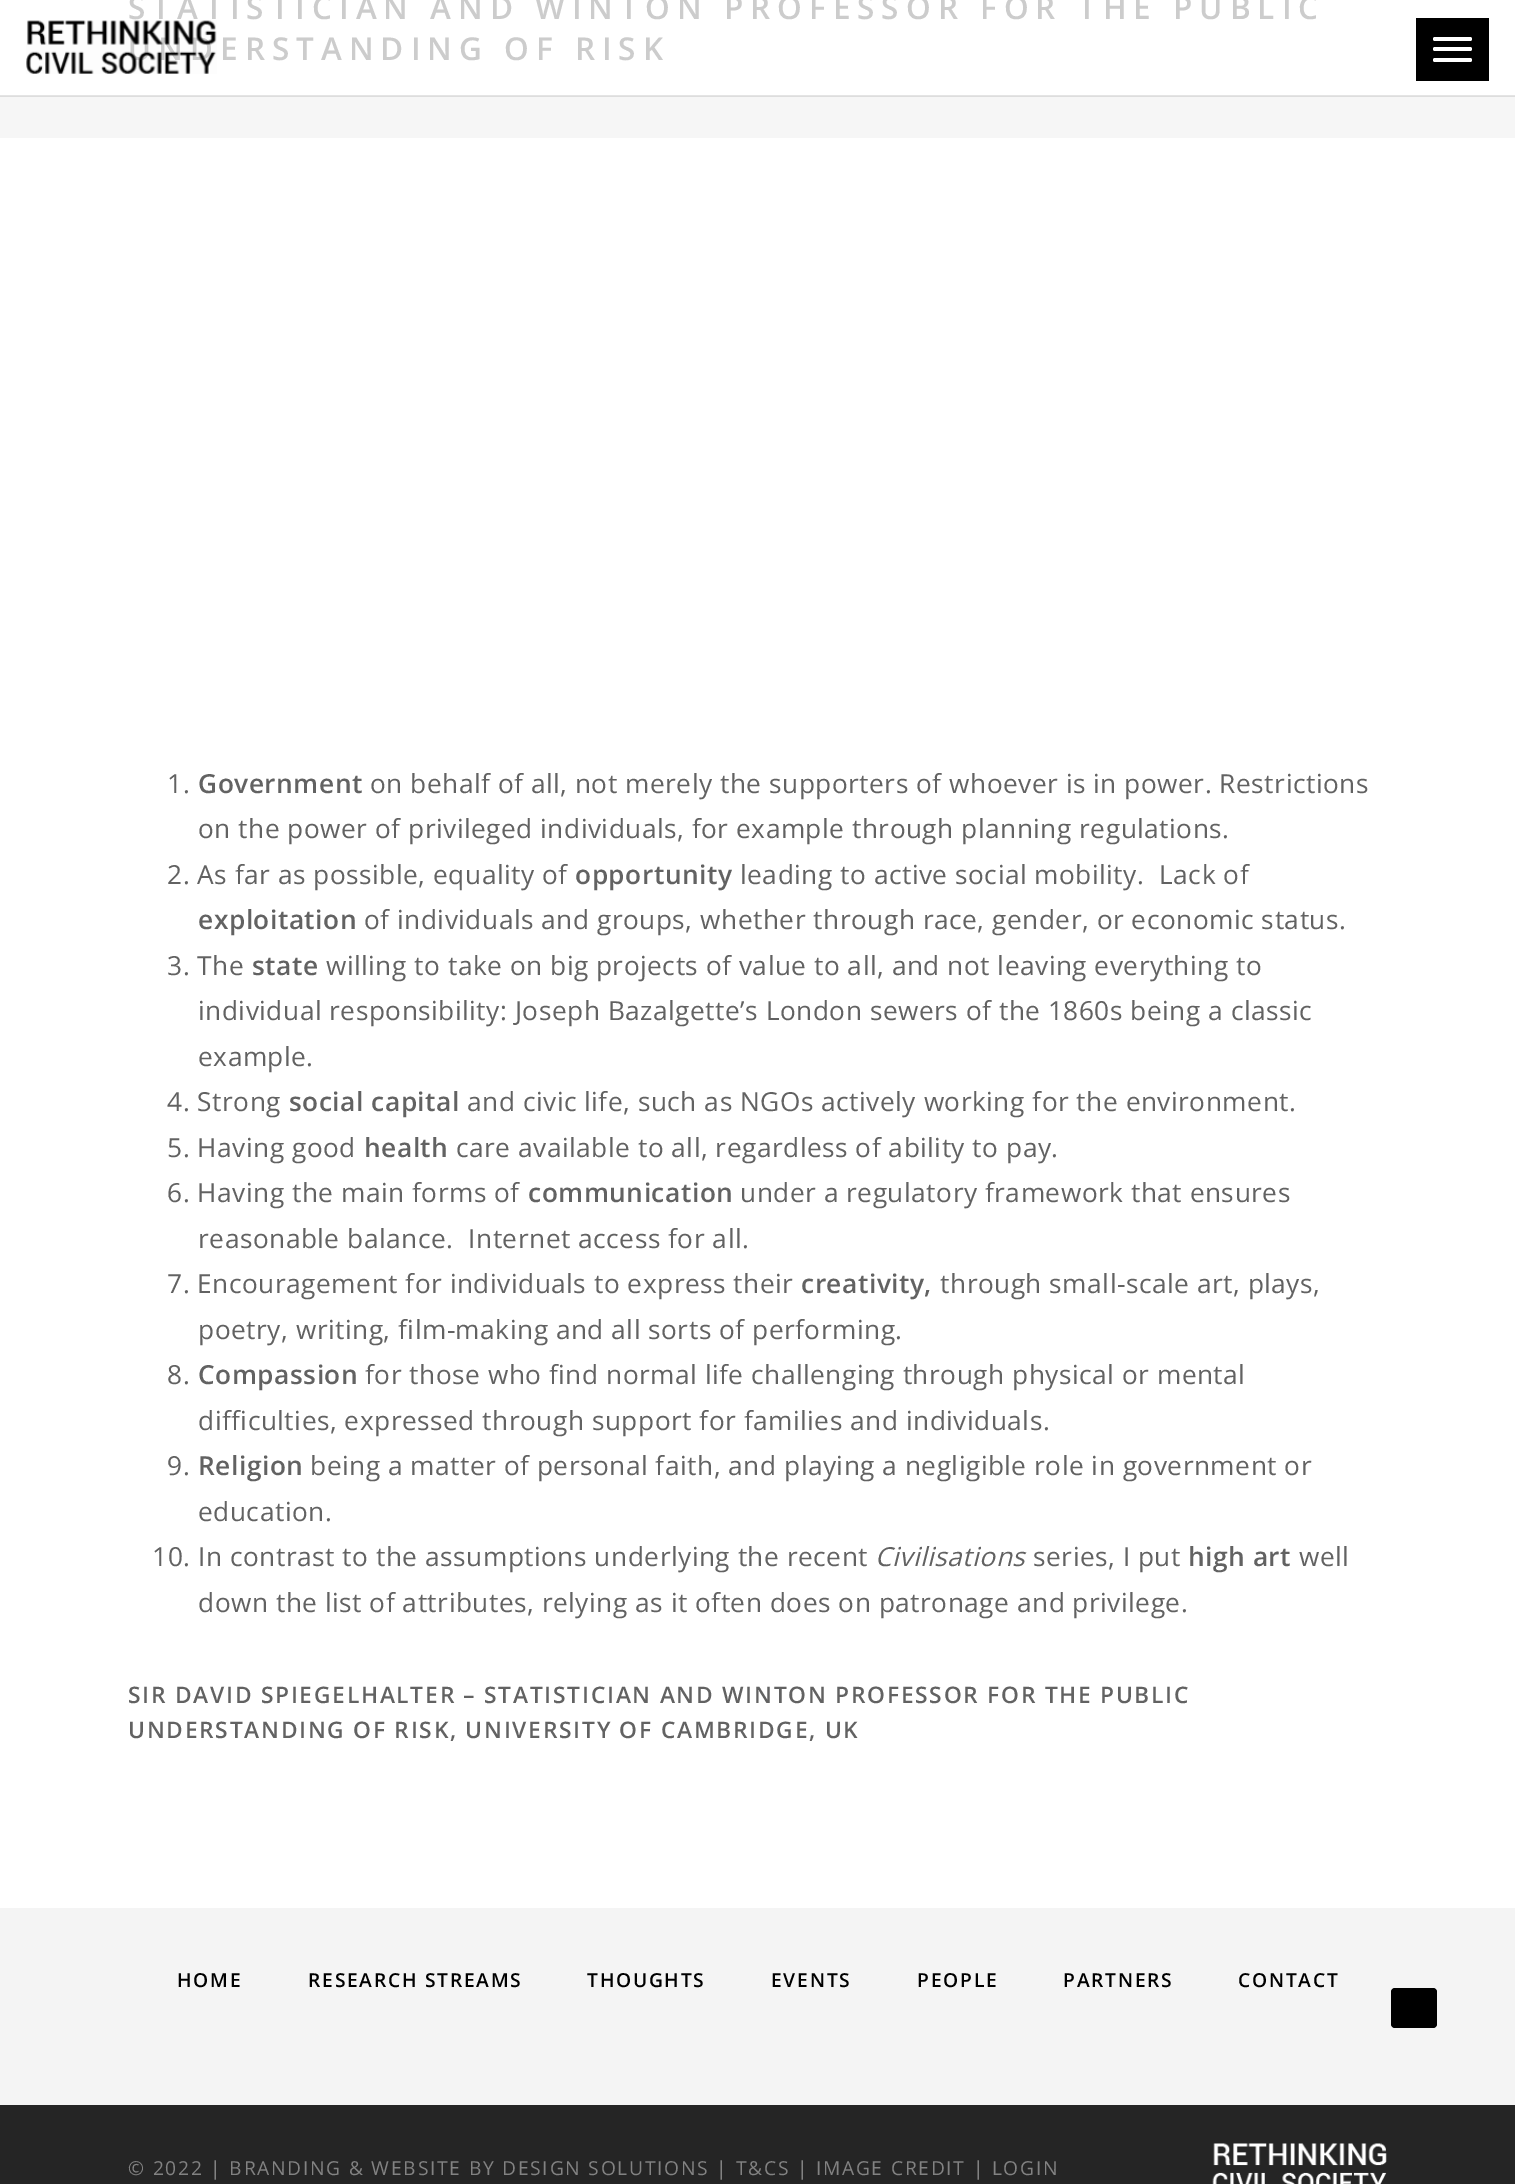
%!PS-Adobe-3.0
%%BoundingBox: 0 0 1515 2184
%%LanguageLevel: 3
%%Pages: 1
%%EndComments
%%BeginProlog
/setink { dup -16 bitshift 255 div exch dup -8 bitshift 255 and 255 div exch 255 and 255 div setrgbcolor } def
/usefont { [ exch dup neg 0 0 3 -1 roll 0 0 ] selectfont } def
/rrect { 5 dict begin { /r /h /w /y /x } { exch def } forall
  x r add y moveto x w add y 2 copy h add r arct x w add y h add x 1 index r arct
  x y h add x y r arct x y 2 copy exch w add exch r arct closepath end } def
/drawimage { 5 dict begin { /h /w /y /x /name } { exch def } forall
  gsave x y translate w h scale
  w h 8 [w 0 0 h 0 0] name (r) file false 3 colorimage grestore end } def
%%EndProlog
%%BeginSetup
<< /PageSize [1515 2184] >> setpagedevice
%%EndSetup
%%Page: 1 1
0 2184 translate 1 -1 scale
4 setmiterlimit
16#FFFFFF setink
0 0 1515 2184 rectfill
[
    [0 97 1515 41 16#F6F6F6]
    [0 96 1515 1 16#DDDDDD]
    [0 95 1515 1 16#E4E4E4]
] { aload pop setink rectfill } forall
/OpenSans-SemiBold 31.5 usefont
16#CCCCCC setink
128 19 moveto 7 0 (STATISTICIAN AND WINTON PROFESSOR FOR THE PUBLIC) ashow
128 60 moveto 7 0 (UNDERSTANDING OF RISK) ashow
(img1.raw) 26 20 191 54 drawimage
16#000000 setink
1416 18 73 63 rectfill
16#FFFFFF setink
1433 37 39 4 2 rrect fill
1433 47 39 4 2 rrect fill
1433 58 39 4 2 rrect fill
/OpenSans-Regular 26.25 usefont
16#626262 setink
167 793 moveto 0.53 0 (1.) ashow
/OpenSans-SemiBold 26.25 usefont
198 793 moveto 0.53 0 (Government) ashow
/OpenSans-Regular 26.25 usefont
370 793 moveto 0.53 0 (on behalf of all, not merely the supporters of whoever is in power. Restrictions) ashow
198 838 moveto 0.53 0 (on the power of privileged individuals, for example through planning regulations.) ashow
167 884 moveto 0.53 0 (2. As far as possible, equality of) ashow
/OpenSans-SemiBold 26.25 usefont
575 884 moveto 0.53 0 (opportunity) ashow
/OpenSans-Regular 26.25 usefont
740 884 moveto 0.53 0 (leading to active social mobility.  Lack of) ashow
/OpenSans-SemiBold 26.25 usefont
198 929 moveto 0.53 0 (exploitation) ashow
/OpenSans-Regular 26.25 usefont
364 929 moveto 0.53 0 (of individuals and groups, whether through race, gender, or economic status.) ashow
167 975 moveto 0.53 0 (3. The) ashow
/OpenSans-SemiBold 26.25 usefont
252 975 moveto 0.53 0 (state) ashow
/OpenSans-Regular 26.25 usefont
326 975 moveto 0.53 0 (willing to take on big projects of value to all, and not leaving everything to) ashow
198 1020 moveto 0.53 0 (individual responsibility: Joseph Bazalgette’s London sewers of the 1860s being a classic) ashow
198 1066 moveto 0.53 0 (example.) ashow
167 1111 moveto 0.53 0 (4. Strong) ashow
/OpenSans-SemiBold 26.25 usefont
289 1111 moveto 0.53 0 (social capital) ashow
/OpenSans-Regular 26.25 usefont
467 1111 moveto 0.53 0 (and civic life, such as NGOs actively working for the environment.) ashow
167 1157 moveto 0.53 0 (5. Having good) ashow
/OpenSans-SemiBold 26.25 usefont
364 1157 moveto 0.53 0 (health) ashow
/OpenSans-Regular 26.25 usefont
456 1157 moveto 0.53 0 (care available to all, regardless of ability to pay.) ashow
167 1202 moveto 0.53 0 (6. Having the main forms of) ashow
/OpenSans-SemiBold 26.25 usefont
528 1202 moveto 0.53 0 (communication) ashow
/OpenSans-Regular 26.25 usefont
740 1202 moveto 0.53 0 (under a regulatory framework that ensures) ashow
198 1248 moveto 0.53 0 (reasonable balance.  Internet access for all.) ashow
167 1293 moveto 0.53 0 (7. Encouragement for individuals to express their) ashow
/OpenSans-SemiBold 26.25 usefont
801 1293 moveto 0.53 0 (creativity,) ashow
/OpenSans-Regular 26.25 usefont
940 1293 moveto 0.53 0 (through small-scale art, plays,) ashow
198 1339 moveto 0.53 0 (poetry, writing, film-making and all sorts of performing.) ashow
167 1384 moveto 0.53 0 (8.) ashow
/OpenSans-SemiBold 26.25 usefont
198 1384 moveto 0.53 0 (Compassion) ashow
/OpenSans-Regular 26.25 usefont
365 1384 moveto 0.53 0 (for those who find normal life challenging through physical or mental) ashow
198 1430 moveto 0.53 0 (difficulties, expressed through support for families and individuals.) ashow
167 1475 moveto 0.53 0 (9.) ashow
/OpenSans-SemiBold 26.25 usefont
198 1475 moveto 0.53 0 (Religion) ashow
/OpenSans-Regular 26.25 usefont
310 1475 moveto 0.53 0 (being a matter of personal faith, and playing a negligible role in government or) ashow
198 1521 moveto 0.53 0 (education.) ashow
152 1566 moveto 0.53 0 (10. In contrast to the assumptions underlying the recent) ashow
/OpenSans-Italic 26.25 usefont
875 1566 moveto 0.53 0 (Civilisations) ashow
/OpenSans-Regular 26.25 usefont
1033 1566 moveto 0.53 0 (series, I put) ashow
/OpenSans-SemiBold 26.25 usefont
1188 1566 moveto 0.53 0 (high art) ashow
/OpenSans-Regular 26.25 usefont
1299 1566 moveto 0.53 0 (well) ashow
198 1612 moveto 0.53 0 (down the list of attributes, relying as it often does on patronage and privilege.) ashow
/OpenSans-SemiBold 22.75 usefont
128 1703 moveto 1.75 0 (SIR DAVID SPIEGELHALTER – STATISTICIAN AND WINTON PROFESSOR FOR THE PUBLIC) ashow
128 1738 moveto 1.75 0 (UNDERSTANDING OF RISK, UNIVERSITY OF CAMBRIDGE, UK) ashow
16#F4F4F4 setink
0 1908 1515 197 rectfill
/OpenSans-SemiBold 19.25 usefont
16#000000 setink
177 1987 moveto 1.75 0 (HOME) ashow
308 1987 moveto 1.75 0 (RESEARCH STREAMS) ashow
587 1987 moveto 1.75 0 (THOUGHTS) ashow
771 1987 moveto 1.75 0 (EVENTS) ashow
917 1987 moveto 1.75 0 (PEOPLE) ashow
1063 1987 moveto 1.75 0 (PARTNERS) ashow
1238 1987 moveto 1.75 0 (CONTACT) ashow
1391 1988 46 40 4 rrect fill
16#252525 setink
0 2105 1515 79 rectfill
/OpenSans-Regular 19.25 usefont
16#828282 setink
128 2175 moveto 1.75 0 (© 2022 | BRANDING & WEBSITE BY DESIGN SOLUTIONS | T&CS | IMAGE CREDIT | LOGIN) ashow
(img2.raw) 1212 2143 175 41 drawimage
showpage
%%EOF
